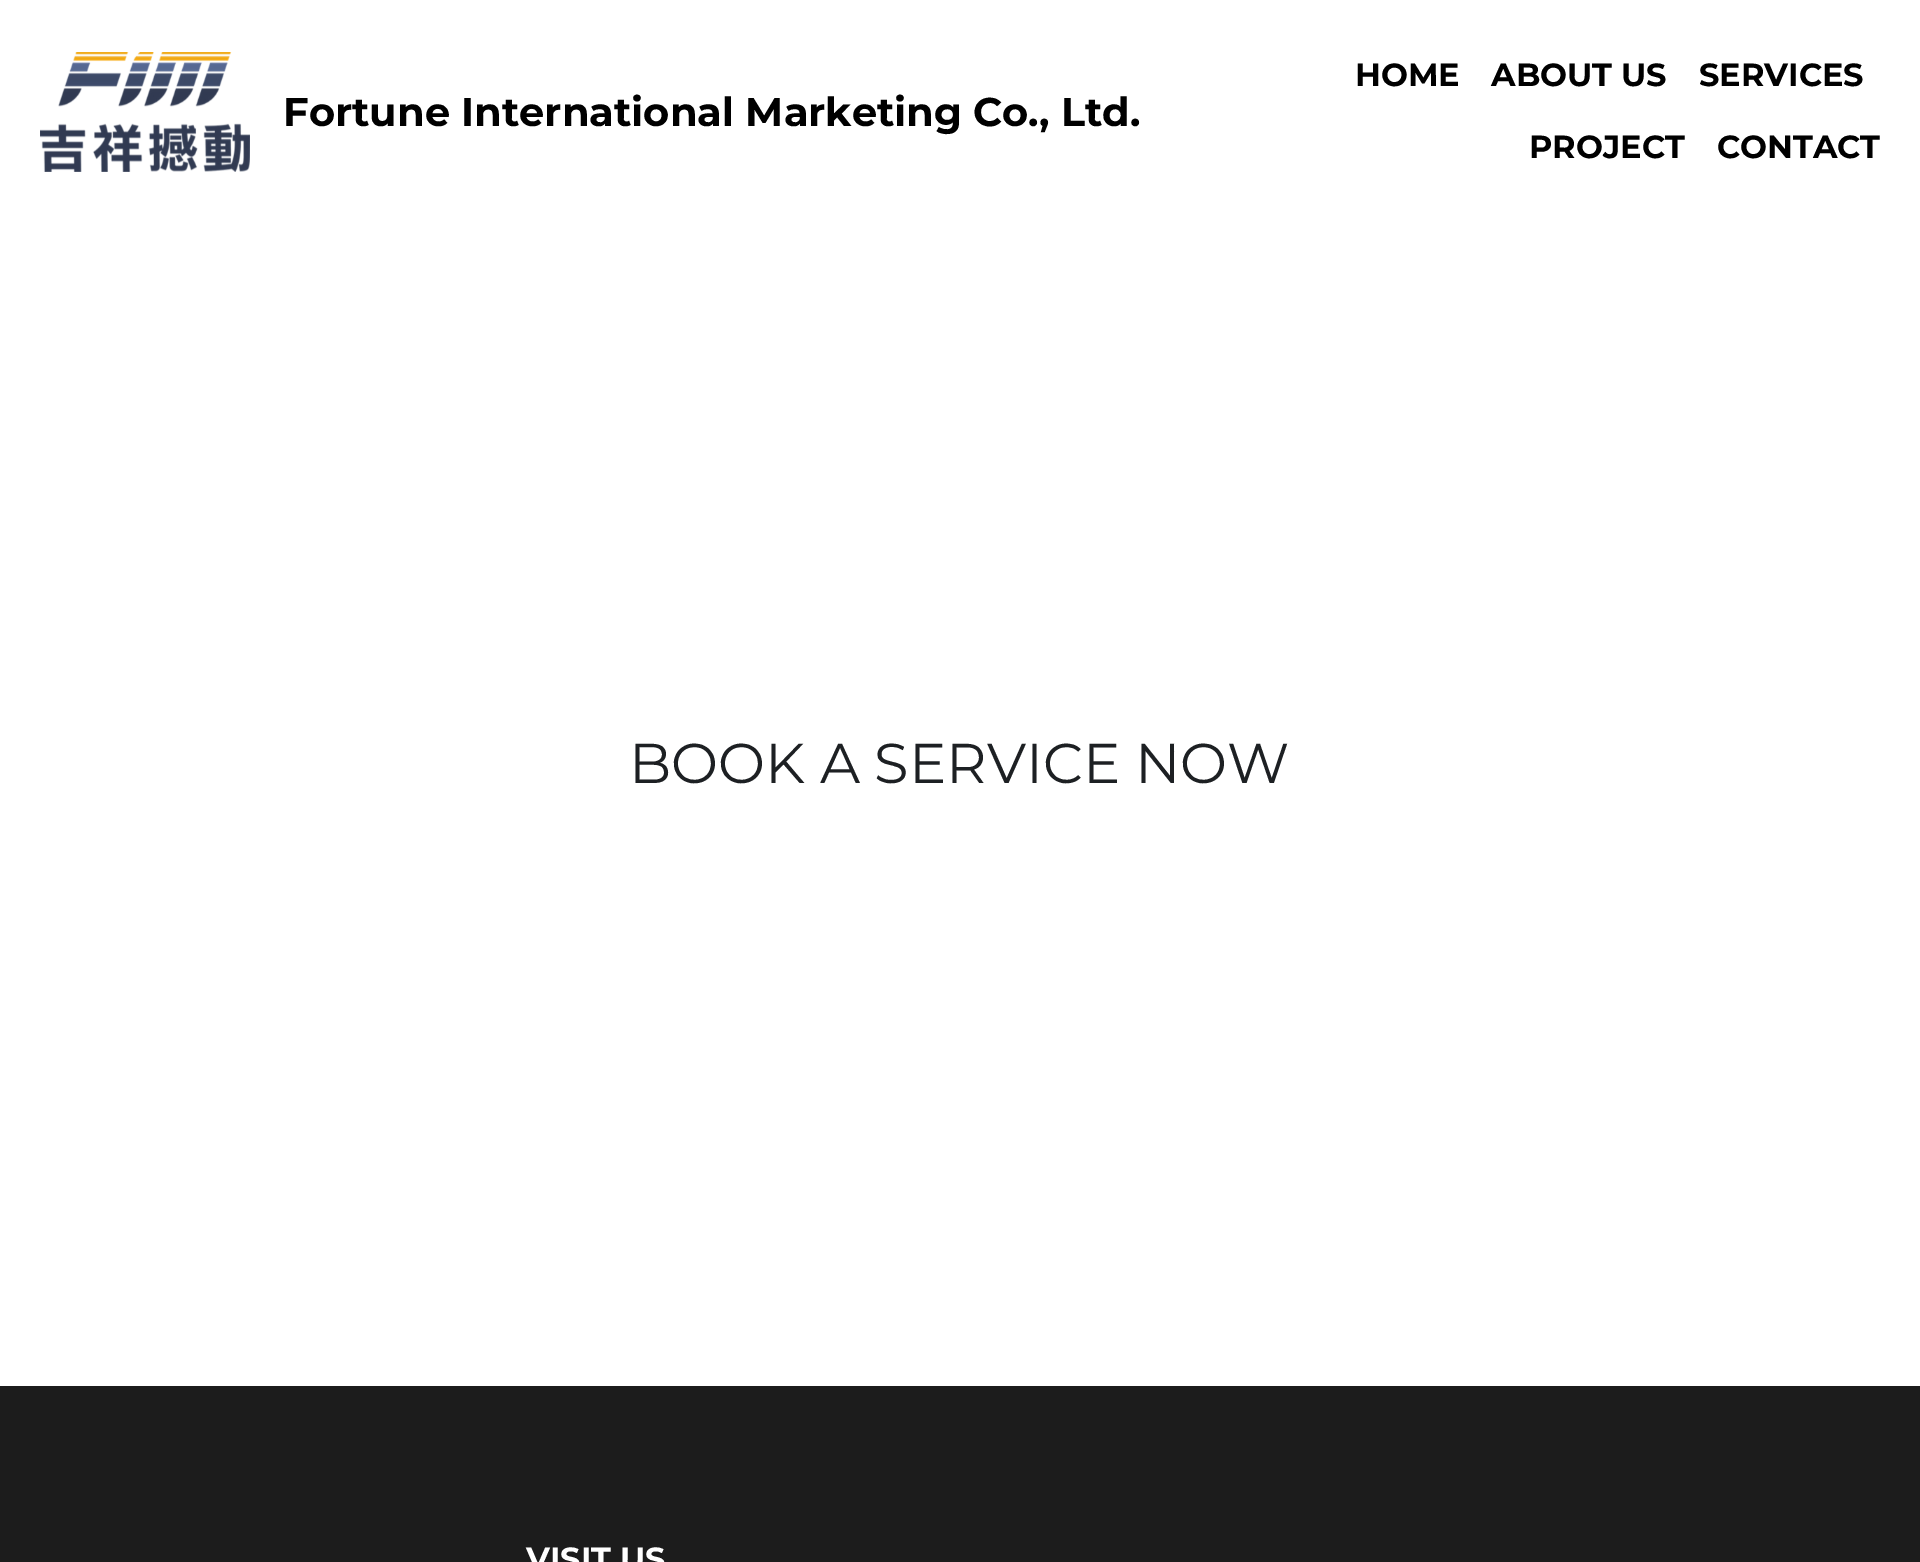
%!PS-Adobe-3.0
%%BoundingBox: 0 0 1920 1562
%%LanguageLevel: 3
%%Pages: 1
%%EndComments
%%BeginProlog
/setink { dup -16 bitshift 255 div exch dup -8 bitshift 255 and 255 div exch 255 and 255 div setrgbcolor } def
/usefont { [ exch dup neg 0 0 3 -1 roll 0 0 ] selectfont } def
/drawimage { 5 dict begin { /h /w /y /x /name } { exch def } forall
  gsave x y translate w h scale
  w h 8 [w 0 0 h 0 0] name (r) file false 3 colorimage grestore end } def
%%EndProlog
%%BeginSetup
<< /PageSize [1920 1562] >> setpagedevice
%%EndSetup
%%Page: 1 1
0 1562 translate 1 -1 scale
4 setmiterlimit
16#FFFFFF setink
0 0 1920 1562 rectfill
(img1.raw) 40 52 210 120 drawimage
/Montserrat-Bold 40 usefont
16#000000 setink
283 126 moveto (Fortune International Marketing Co., Ltd.) show
/Montserrat-Bold 32 usefont
[
    [(HOME) 1355 86]
    [(ABOUT US) 1491 86]
    [(SERVICES) 1699 86]
    [(PROJECT) 1529 158]
    [(CONTACT) 1717 158]
] { aload pop moveto show } forall
/Montserrat-Regular 56 usefont
16#1D2023 setink
629 783 moveto (BOOK A SERVICE NOW) show
16#1C1C1C setink
0 1386 1920 176 rectfill
/Montserrat-Bold 32 usefont
16#FFFFFF setink
526 1570 moveto (VISIT US) show
showpage
%%EOF
